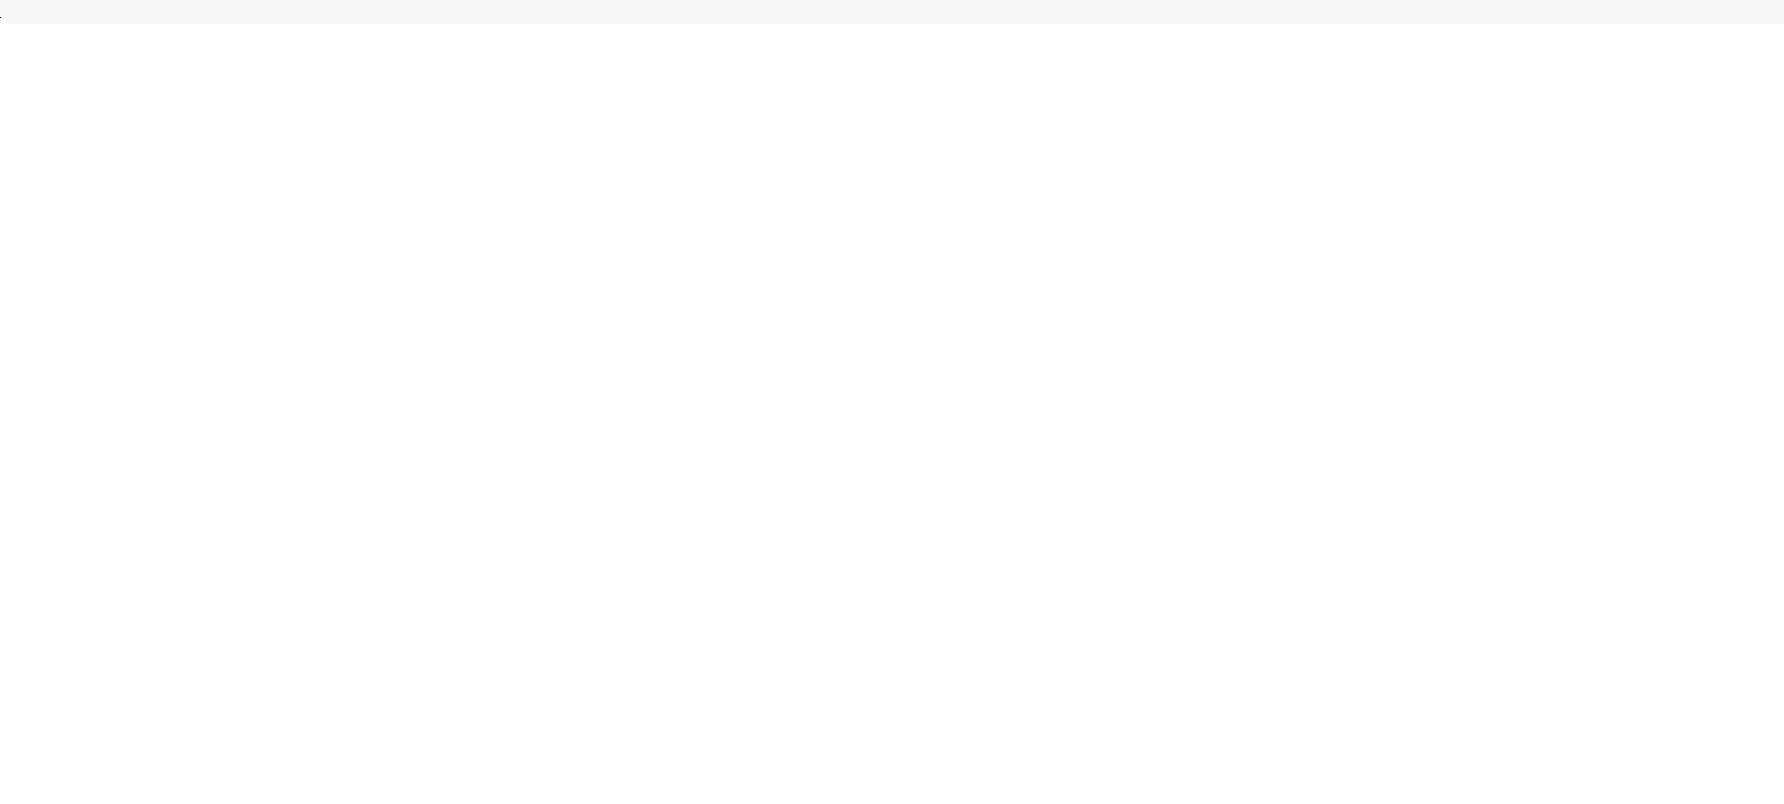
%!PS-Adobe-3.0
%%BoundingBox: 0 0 1784 804
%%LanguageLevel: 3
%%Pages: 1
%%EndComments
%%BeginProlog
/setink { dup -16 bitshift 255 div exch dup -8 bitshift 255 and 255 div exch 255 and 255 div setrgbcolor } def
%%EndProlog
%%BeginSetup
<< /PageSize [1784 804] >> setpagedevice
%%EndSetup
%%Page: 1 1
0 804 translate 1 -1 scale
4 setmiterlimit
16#FFFFFF setink
0 0 1784 804 rectfill
16#F7F7F7 setink
0 0 1784 24 rectfill
16#000000 setink
0 17 1 1 rectfill
showpage
%%EOF
